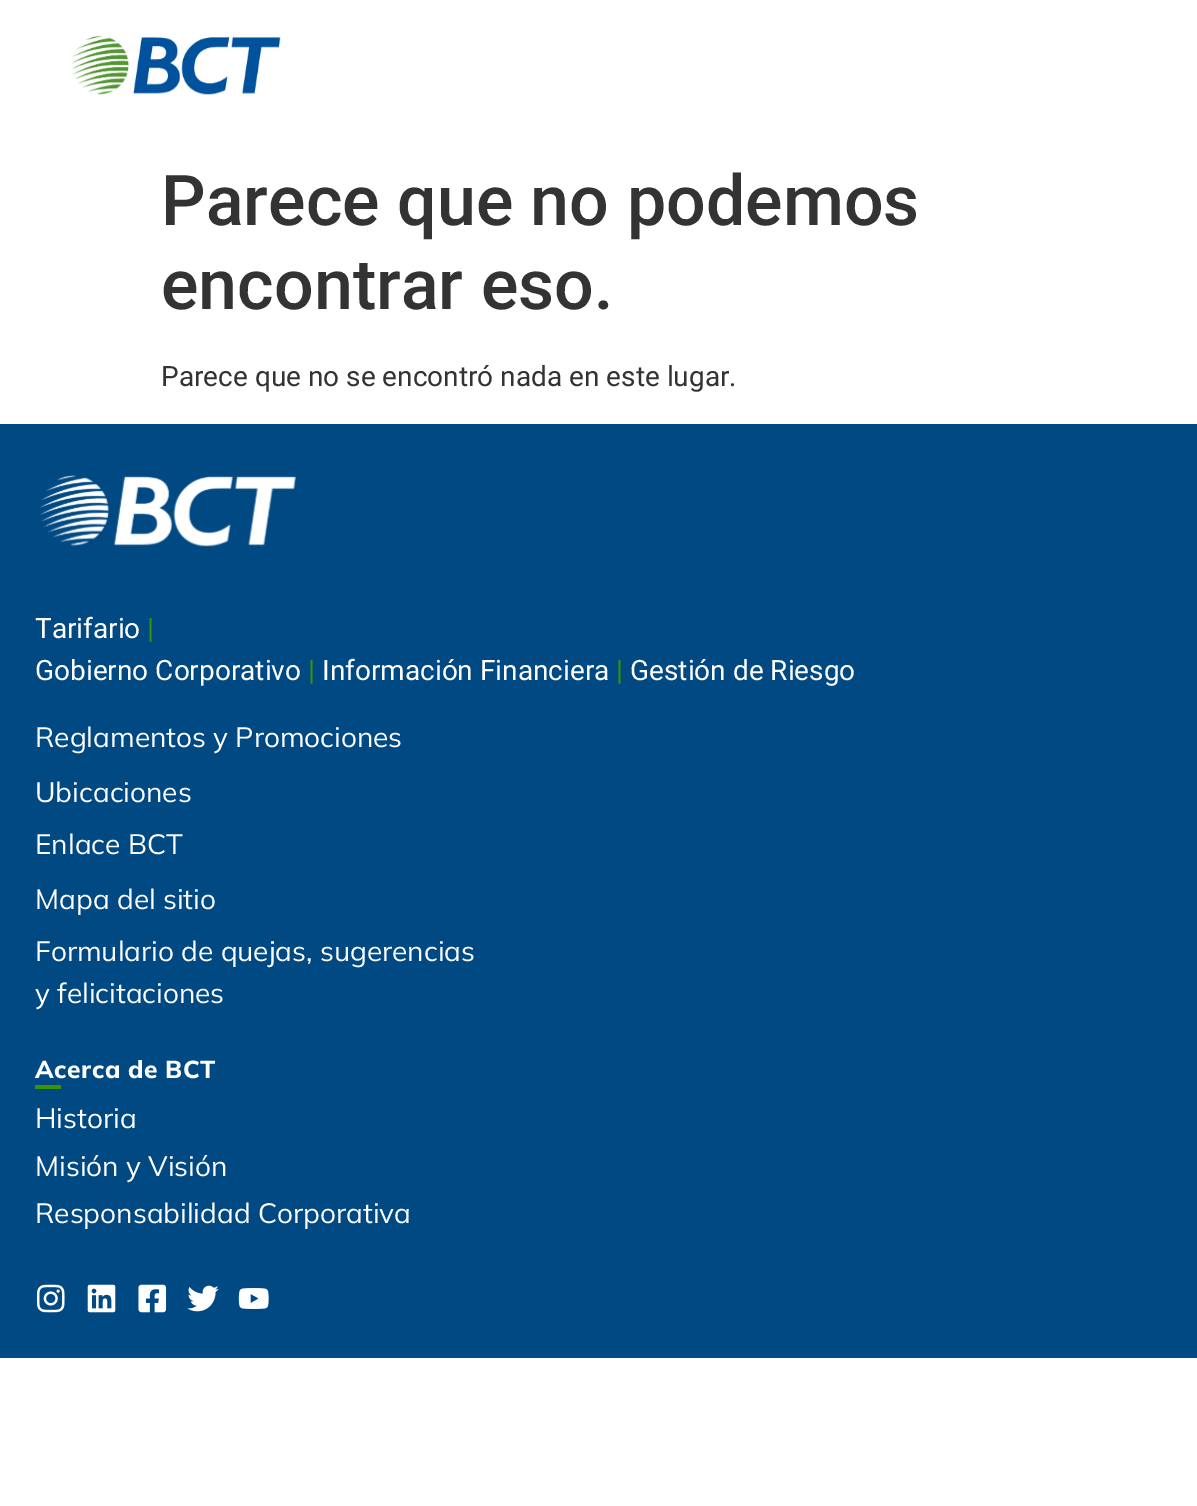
%!PS-Adobe-3.0
%%BoundingBox: 0 0 1197 1506
%%LanguageLevel: 3
%%Pages: 1
%%EndComments
%%BeginProlog
/setink { dup -16 bitshift 255 div exch dup -8 bitshift 255 and 255 div exch 255 and 255 div setrgbcolor } def
/usefont { [ exch dup neg 0 0 3 -1 roll 0 0 ] selectfont } def
/drawimage { 5 dict begin { /h /w /y /x /name } { exch def } forall
  gsave x y translate w h scale
  w h 8 [w 0 0 h 0 0] name (r) file false 3 colorimage grestore end } def
%%EndProlog
%%BeginSetup
<< /PageSize [1197 1506] >> setpagedevice
%%EndSetup
%%Page: 1 1
0 1506 translate 1 -1 scale
4 setmiterlimit
16#FFFFFF setink
0 0 1197 1506 rectfill
(img1.raw) 72 35 210 61 drawimage
/Roboto-Medium 70 usefont
16#333333 setink
161 225 moveto (Parece que no podemos) show
161 309 moveto (encontrar eso.) show
/Roboto-Regular 28 usefont
161 386 moveto (Parece que no se encontró nada en este lugar.) show
16#014983 setink
0 424 1197 934 rectfill
(img2.raw) 40 475 256 72 drawimage
16#FFFFFF setink
35 638 moveto (Tarifario) show
16#389500 setink
147 638 moveto (|) show
16#FFFFFF setink
35 680 moveto (Gobierno Corporativo) show
16#389500 setink
308 680 moveto (|) show
16#FFFFFF setink
322 680 moveto (Información Financiera) show
16#389500 setink
616 680 moveto (|) show
16#FFFFFF setink
630 680 moveto (Gestión de Riesgo) show
/Mulish-Regular 28 usefont
[
    [(Reglamentos y Promociones) 35 747]
    [(Ubicaciones) 35 802]
    [(Enlace BCT) 35 854]
    [(Mapa del sitio) 35 909]
    [(Formulario de quejas, sugerencias) 35 961]
    [(y felicitaciones) 35 1003]
] { aload pop moveto show } forall
/Mulish-ExtraBold 24.5 usefont
35 1078 moveto 0.5 0 (Acerca de BCT) ashow
16#389500 setink
35 1085 26 4 rectfill
/Mulish-Regular 28 usefont
16#FFFFFF setink
[
    [(Historia) 35 1128]
    [(Misión y Visión) 35 1176]
    [(Responsabilidad Corporativa) 35 1223]
] { aload pop moveto show } forall
(img3.raw) 36 1284 29 29 drawimage
(img4.raw) 87 1284 29 29 drawimage
(img5.raw) 138 1284 29 29 drawimage
(img6.raw) 187 1285 32 27 drawimage
(img7.raw) 238 1288 31 21 drawimage
showpage
%%EOF
